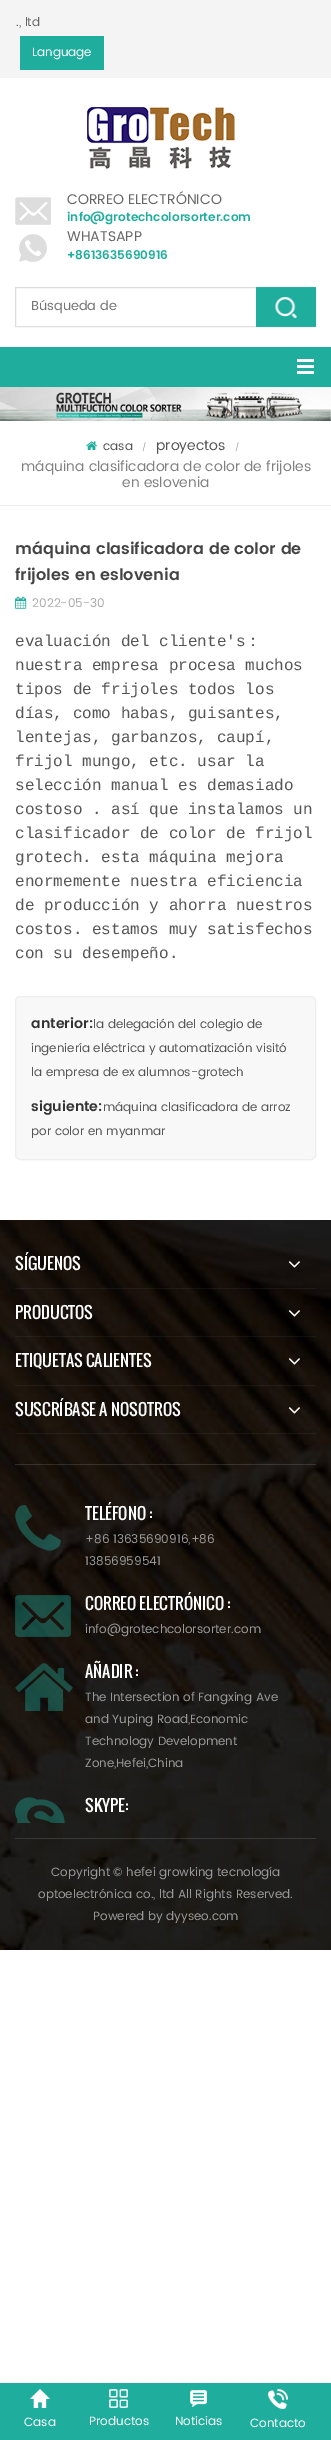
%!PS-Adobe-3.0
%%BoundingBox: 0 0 331 2440
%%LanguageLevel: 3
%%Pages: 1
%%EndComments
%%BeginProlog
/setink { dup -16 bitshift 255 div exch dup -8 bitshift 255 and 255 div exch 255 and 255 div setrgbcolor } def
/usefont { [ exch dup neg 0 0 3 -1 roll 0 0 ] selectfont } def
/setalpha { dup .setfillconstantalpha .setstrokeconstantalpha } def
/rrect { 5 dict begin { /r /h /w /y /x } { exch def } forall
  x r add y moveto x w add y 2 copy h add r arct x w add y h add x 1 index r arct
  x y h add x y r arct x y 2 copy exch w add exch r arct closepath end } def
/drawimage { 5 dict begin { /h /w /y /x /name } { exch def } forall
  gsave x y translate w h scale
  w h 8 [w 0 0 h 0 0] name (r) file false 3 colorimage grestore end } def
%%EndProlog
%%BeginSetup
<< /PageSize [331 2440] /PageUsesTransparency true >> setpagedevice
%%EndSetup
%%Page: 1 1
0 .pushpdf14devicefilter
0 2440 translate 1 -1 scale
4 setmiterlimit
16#FFFFFF setink
0 0 331 2440 rectfill
16#F4F4F4 setink
0 0 331 78 rectfill
/Poppins-Regular 12 usefont
16#666666 setink
16 26 moveto (., ltd) show
16#1FAD9D setink
20 36 84 34 rectfill
16#FFFFFF setink
32 56 moveto (Language) show
(img1.raw) 87 107 148 62 drawimage
(img2.raw) 15 197 36 28 drawimage
/Poppins-Regular 14 usefont
16#666666 setink
67 204 moveto (CORREO ELECTRÓNICO) show
/Poppins-SemiBold 12 usefont
16#1FAD9D setink
67 221 moveto (info@grotechcolorsorter.com) show
(img3.raw) 19 234 28 28 drawimage
/Poppins-Regular 14 usefont
16#666666 setink
67 241 moveto (WHATSAPP) show
/Poppins-SemiBold 12 usefont
16#1FAD9D setink
67 259 moveto (+8613635690916) show
16#DDDDDD setink
15.5 287.5 300 39 rectstroke
/Poppins-Regular 13 usefont
16#757575 setink
31 310 moveto (Búsqueda de) show
(img4.raw) 256 287 60 40 drawimage
[
    [0 347 331 40 16#1FAD9D]
    [297 359 17 3 16#FFFFFF]
    [297 365 17 3 16#FFFFFF]
    [297 371 17 3 16#FFFFFF]
] { aload pop setink rectfill } forall
(img5.raw) 0 387 331 34 drawimage
16#EEEEEE setink
0 505 331 1 rectfill
(img6.raw) 86 441 11 9 drawimage
/Poppins-Regular 12 usefont
16#555555 setink
103 450 moveto (casa) show
/Poppins-Regular 8 usefont
16#999999 setink
142 450 moveto (/) show
/Poppins-Regular 14 usefont
16#555555 setink
156 450 moveto (proyectos) show
/Poppins-Regular 8 usefont
16#999999 setink
235 450 moveto (/) show
/Poppins-Regular 14 usefont
16#808080 setink
21 471 moveto (máquina clasificadora de color de frijoles) show
122 487 moveto (en eslovenia) show
/Poppins-SemiBold 16 usefont
16#444444 setink
15 554 moveto (máquina clasificadora de color de) show
15 580 moveto (frijoles en eslovenia) show
(img7.raw) 15 596 12 13 drawimage
/Poppins-Regular 12 usefont
16#AAAAAA setink
32 607 moveto (2022-05-30) show
/LiberationMono-Regular 16 usefont
16#555555 setink
15 646 moveto (evaluación del cliente's) show
/WenQuanYiZenHei-Medium 16 usefont
245 646 moveto (：) show
/LiberationMono-Regular 16 usefont
[
    [(nuestra empresa procesa muchos) 15 670]
    [(tipos de frijoles todos los) 15 694]
    [(días, como habas, guisantes,) 15 718]
    [(lentejas, garbanzos, caupí,) 15 742]
    [(frijol mungo, etc. usar la) 15 766]
    [(selección manual es demasiado) 15 790]
    [(costoso . así que instalamos un) 15 814]
    [(clasificador de color de frijol) 15 838]
    [(grotech. esta máquina mejora) 15 862]
    [(enormemente nuestra eficiencia) 15 886]
    [(de producción y ahorra nuestros) 15 910]
    [(costos. estamos muy satisfechos) 15 934]
    [(con su desempeño.) 15 958]
] { aload pop moveto show } forall
16#F8F8F8 setink
15.5 996.5 300 163 4.5 rrect gsave fill grestore
16#EEEEEE setink
stroke
/Poppins-SemiBold 14 usefont
16#333333 setink
31 1028 moveto (anterior:) show
/Poppins-Regular 12 usefont
16#555555 setink
[
    [(la delegación del colegio de) 93 1028]
    [(ingeniería eléctrica y automatización visitó) 31 1052]
    [(la empresa de ex alumnos-grotech) 31 1076]
] { aload pop moveto show } forall
/Poppins-SemiBold 14 usefont
16#333333 setink
31 1111 moveto (siguiente:) show
/Poppins-Regular 12 usefont
16#555555 setink
103 1111 moveto (máquina clasificadora de arroz) show
31 1135 moveto (por color en myanmar) show
(img8.raw) 0 1220 331 730 drawimage
0.05 setalpha
16#FFFFFF setink
15 1288 301 1 rectfill
/Oswald-Regular 16 usefont
1 setalpha
15 1270 moveto (SÍGUENOS) show
(img9.raw) 288 1261 12 7 drawimage
0.05 setalpha
15 1336 301 1 rectfill
1 setalpha
15 1319 moveto (PRODUCTOS) show
(img10.raw) 288 1310 12 7 drawimage
0.05 setalpha
15 1385 301 1 rectfill
1 setalpha
15 1367 moveto (ETIQUETAS CALIENTES) show
(img11.raw) 288 1358 12 7 drawimage
0.05 setalpha
15 1433 301 1 rectfill
1 setalpha
15 1416 moveto (SUSCRÍBASE A NOSOTROS) show
(img12.raw) 288 1407 12 7 drawimage
0.13 setalpha
15 1464 301 1 rectfill
15 1838 301 1 rectfill
1 setalpha
(img13.raw) 15 1505 46 46 drawimage
85 1520 moveto (TELÉFONO :) show
/Poppins-Regular 12 usefont
16#999999 setink
85 1543 moveto (+86 13635690916,+86) show
85 1565 moveto (13856959541) show
(img14.raw) 15 1595 56 42 drawimage
/Oswald-Regular 16 usefont
16#FFFFFF setink
85 1610 moveto (CORREO ELECTRÓNICO :) show
/Poppins-Regular 12 usefont
16#999999 setink
85 1633 moveto (info@grotechcolorsorter.com) show
(img15.raw) 15 1663 58 48 drawimage
/Oswald-Regular 16 usefont
16#FFFFFF setink
85 1678 moveto (AÑADIR :) show
/Poppins-Regular 12 usefont
16#999999 setink
[
    [(The Intersection of Fangxing Ave) 85 1701]
    [(and Yuping Road,Economic) 85 1723]
    [(Technology Development) 85 1745]
    [(Zone,Hefei,China) 85 1767]
] { aload pop moveto show } forall
(img16.raw) 15 1797 50 26 drawimage
/Oswald-Regular 16 usefont
16#FFFFFF setink
85 1812 moveto (SKYPE:) show
/Poppins-Regular 12 usefont
16#999999 setink
[
    [(Copyright © hefei growking tecnología) 51 1876]
    [(optoelectrónica co., ltd All Rights Reserved.) 38 1898]
    [(Powered by dyyseo.com) 93 1920]
] { aload pop moveto show } forall
16#1FAD9D setink
0 2383 331 57 rectfill
(img17.raw) 30 2389 20 19 drawimage
16#FFFFFF setink
24 2426 moveto (Casa) show
(img18.raw) 109 2389 19 19 drawimage
89 2425 moveto (Productos) show
(img19.raw) 190 2390 17 17 drawimage
175 2425 moveto (Noticias) show
(img20.raw) 268 2389 20 20 drawimage
250 2427 moveto (Contacto) show
.poppdf14devicefilter showpage
%%EOF
